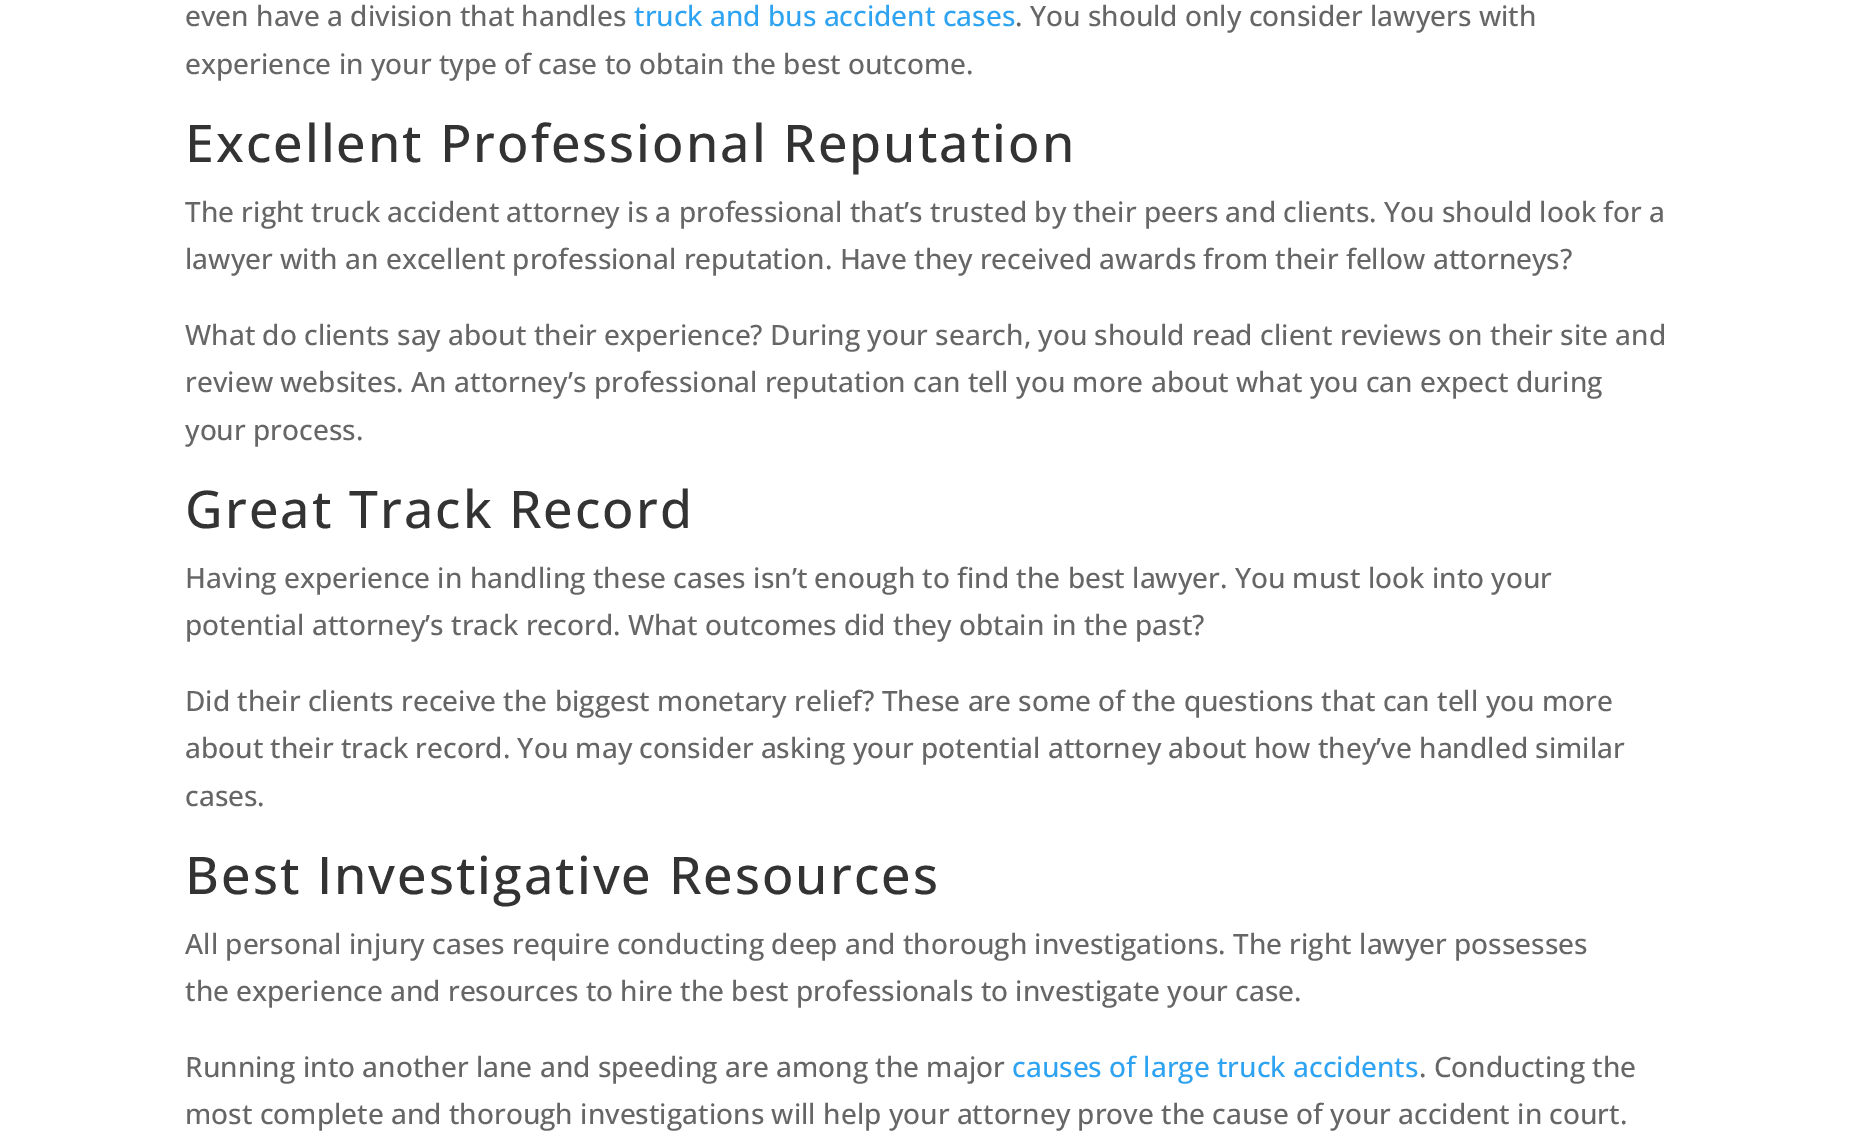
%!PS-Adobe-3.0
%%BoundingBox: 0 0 1851 1142
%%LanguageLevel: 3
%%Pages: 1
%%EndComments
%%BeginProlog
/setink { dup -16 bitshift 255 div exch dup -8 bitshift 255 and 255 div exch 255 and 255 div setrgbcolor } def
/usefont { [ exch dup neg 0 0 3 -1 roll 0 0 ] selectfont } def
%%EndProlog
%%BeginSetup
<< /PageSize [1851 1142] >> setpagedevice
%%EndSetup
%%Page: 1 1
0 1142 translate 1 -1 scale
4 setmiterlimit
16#FFFFFF setink
0 0 1851 1142 rectfill
/OpenSans-Medium 28 usefont
16#666666 setink
185 26 moveto (even have a division that handles) show
16#2EA3F2 setink
634 26 moveto (truck and bus accident cases) show
16#666666 setink
1015 26 moveto (. You should only consider lawyers with) show
185 74 moveto (experience in your type of case to obtain the best outcome.) show
/OpenSans-Medium 52 usefont
16#333333 setink
185 162 moveto 2 0 (Excellent Professional Reputation) ashow
/OpenSans-Medium 28 usefont
16#666666 setink
[
    [(The right truck accident attorney is a professional that’s trusted by their peers and clients. You should look for a) 185 222]
    [(lawyer with an excellent professional reputation. Have they received awards from their fellow attorneys?) 185 269]
    [(What do clients say about their experience? During your search, you should read client reviews on their site and) 185 345]
    [(review websites. An attorney’s professional reputation can tell you more about what you can expect during) 185 392]
    [(your process.) 185 440]
] { aload pop moveto show } forall
/OpenSans-Medium 52 usefont
16#333333 setink
185 528 moveto 2 0 (Great Track Record) ashow
/OpenSans-Medium 28 usefont
16#666666 setink
[
    [(Having experience in handling these cases isn’t enough to find the best lawyer. You must look into your) 185 588]
    [(potential attorney’s track record. What outcomes did they obtain in the past?) 185 635]
    [(Did their clients receive the biggest monetary relief? These are some of the questions that can tell you more) 185 711]
    [(about their track record. You may consider asking your potential attorney about how they’ve handled similar) 185 758]
    [(cases.) 185 806]
] { aload pop moveto show } forall
/OpenSans-Medium 52 usefont
16#333333 setink
185 894 moveto 2 0 (Best Investigative Resources) ashow
/OpenSans-Medium 28 usefont
16#666666 setink
[
    [(All personal injury cases require conducting deep and thorough investigations. The right lawyer possesses) 185 954]
    [(the experience and resources to hire the best professionals to investigate your case.) 185 1001]
    [(Running into another lane and speeding are among the major) 185 1077]
] { aload pop moveto show } forall
16#2EA3F2 setink
1012 1077 moveto (causes of large truck accidents) show
16#666666 setink
1419 1077 moveto (. Conducting the) show
185 1124 moveto (most complete and thorough investigations will help your attorney prove the cause of your accident in court.) show
showpage
%%EOF
